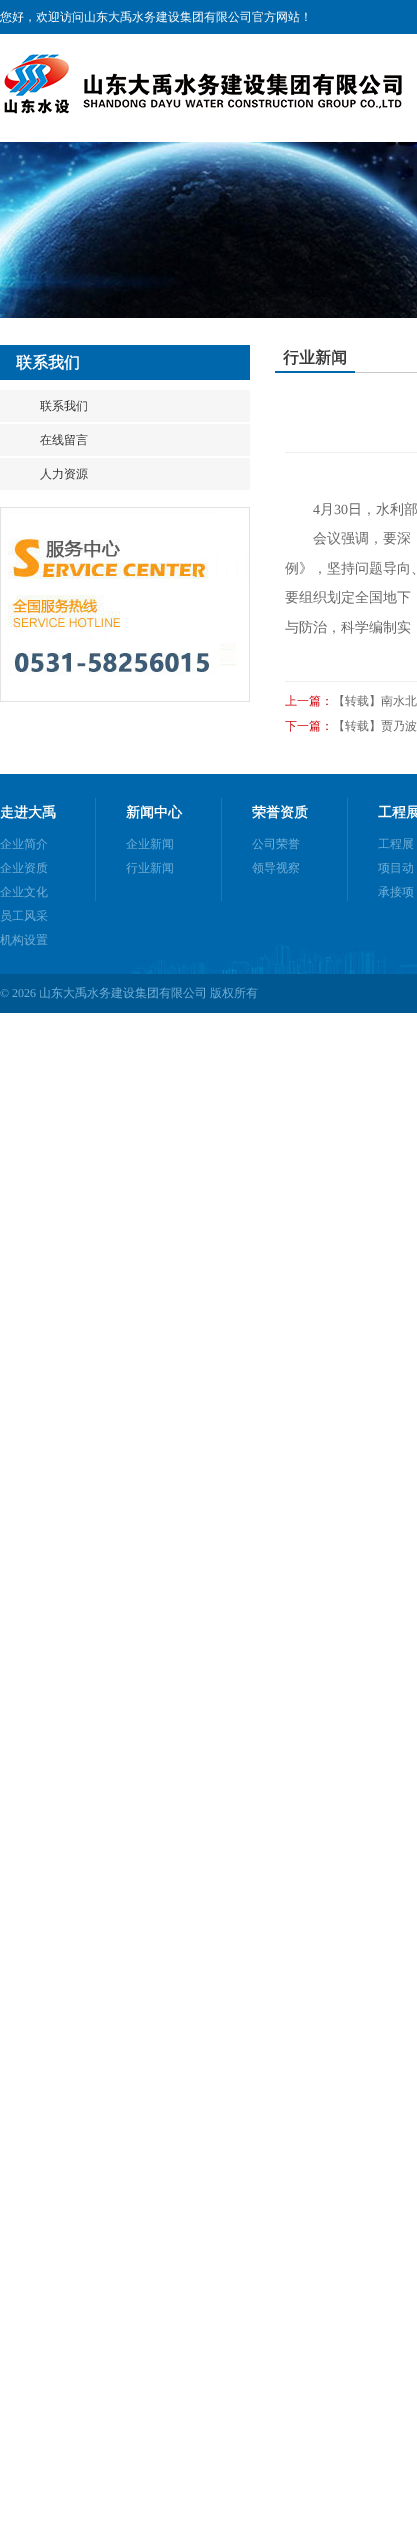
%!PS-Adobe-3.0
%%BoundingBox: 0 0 417 2548
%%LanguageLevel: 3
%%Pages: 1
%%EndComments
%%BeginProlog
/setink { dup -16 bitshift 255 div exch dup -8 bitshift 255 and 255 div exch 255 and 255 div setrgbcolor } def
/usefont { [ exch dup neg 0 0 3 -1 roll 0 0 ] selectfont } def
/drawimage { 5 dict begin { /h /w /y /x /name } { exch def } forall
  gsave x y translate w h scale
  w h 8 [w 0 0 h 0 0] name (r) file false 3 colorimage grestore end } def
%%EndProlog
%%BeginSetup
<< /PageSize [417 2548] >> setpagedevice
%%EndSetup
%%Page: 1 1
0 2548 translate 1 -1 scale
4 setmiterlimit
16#FFFFFF setink
0 0 417 2548 rectfill
16#0067AC setink
0 0 417 34 rectfill
/WenQuanYiZenHei-Medium 12 usefont
16#FFFFFF setink
0 21 moveto (您好，欢迎访问山东大禹水务建设集团有限公司官方网站！) show
(img1.raw) 4 54 398 60 drawimage
(img2.raw) 0 142 417 176 drawimage
16#0067AC setink
0 345 250 35 rectfill
/WenQuanYiZenHei-Bold 16 usefont
16#FFFFFF setink
16 368 moveto (联系我们) show
16#F6F6F6 setink
0 390 250 32 rectfill
/WenQuanYiZenHei-Medium 12 usefont
16#333333 setink
40 410 moveto (联系我们) show
16#F6F6F6 setink
0 424 250 32 rectfill
16#333333 setink
40 444 moveto (在线留言) show
16#F6F6F6 setink
0 458 250 32 rectfill
16#333333 setink
40 478 moveto (人力资源) show
(img3.raw) 0 507 250 195 drawimage
16#C9C9C9 setink
355 372 62 1 rectfill
16#0067AC setink
275 371 80 2 rectfill
/WenQuanYiZenHei-Bold 16 usefont
16#393939 setink
283 363 moveto (行业新闻) show
16#EEEEEE setink
285 452 132 1 rectfill
/LiberationSerif-Regular 14 usefont
16#696969 setink
313 514 moveto (4) show
/WenQuanYiZenHei-Medium 14 usefont
320 514 moveto (月) show
/LiberationSerif-Regular 14 usefont
334 514 moveto (30) show
/WenQuanYiZenHei-Medium 14 usefont
[
    [(日，水利部) 348 514]
    [(会议强调，要深) 313 543]
    [(例》，坚持问题导向、) 285 573]
    [(要组织划定全国地下) 285 602]
    [(与防治，科学编制实) 285 632]
] { aload pop moveto show } forall
16#EEEEEE setink
285 681 132 1 rectfill
/WenQuanYiZenHei-Medium 12 usefont
16#CD0007 setink
285 705 moveto (上一篇：) show
16#696969 setink
333 705 moveto (【转载】南水北) show
16#CD0007 setink
285 730 moveto (下一篇：) show
16#696969 setink
333 730 moveto (【转载】贾乃波) show
(img4.raw) 0 774 417 200 drawimage
16#147AC2 setink
95 798 1 103 rectfill
/WenQuanYiZenHei-Bold 14 usefont
16#FFFFFF setink
0 817 moveto (走进大禹) show
/WenQuanYiZenHei-Medium 12 usefont
16#73B0D8 setink
[
    [(企业简介) 0 848]
    [(企业资质) 0 872]
    [(企业文化) 0 896]
    [(员工风采) 0 920]
    [(机构设置) 0 944]
] { aload pop moveto show } forall
16#147AC2 setink
221 798 1 103 rectfill
/WenQuanYiZenHei-Bold 14 usefont
16#FFFFFF setink
126 817 moveto (新闻中心) show
/WenQuanYiZenHei-Medium 12 usefont
16#73B0D8 setink
126 848 moveto (企业新闻) show
126 872 moveto (行业新闻) show
16#147AC2 setink
347 798 1 103 rectfill
/WenQuanYiZenHei-Bold 14 usefont
16#FFFFFF setink
252 817 moveto (荣誉资质) show
/WenQuanYiZenHei-Medium 12 usefont
16#73B0D8 setink
252 848 moveto (公司荣誉) show
252 872 moveto (领导视察) show
/WenQuanYiZenHei-Bold 14 usefont
16#FFFFFF setink
378 817 moveto (工程展) show
/WenQuanYiZenHei-Medium 12 usefont
16#73B0D8 setink
[
    [(工程展) 378 848]
    [(项目动) 378 872]
    [(承接项) 378 896]
] { aload pop moveto show } forall
16#005893 setink
0 974 417 39 rectfill
/LiberationSerif-Regular 12 usefont
16#73B0D8 setink
0 997 moveto (© 2026) show
/WenQuanYiZenHei-Medium 12 usefont
39 997 moveto (山东大禹水务建设集团有限公司) show
210 997 moveto (版权所有) show
showpage
%%EOF
